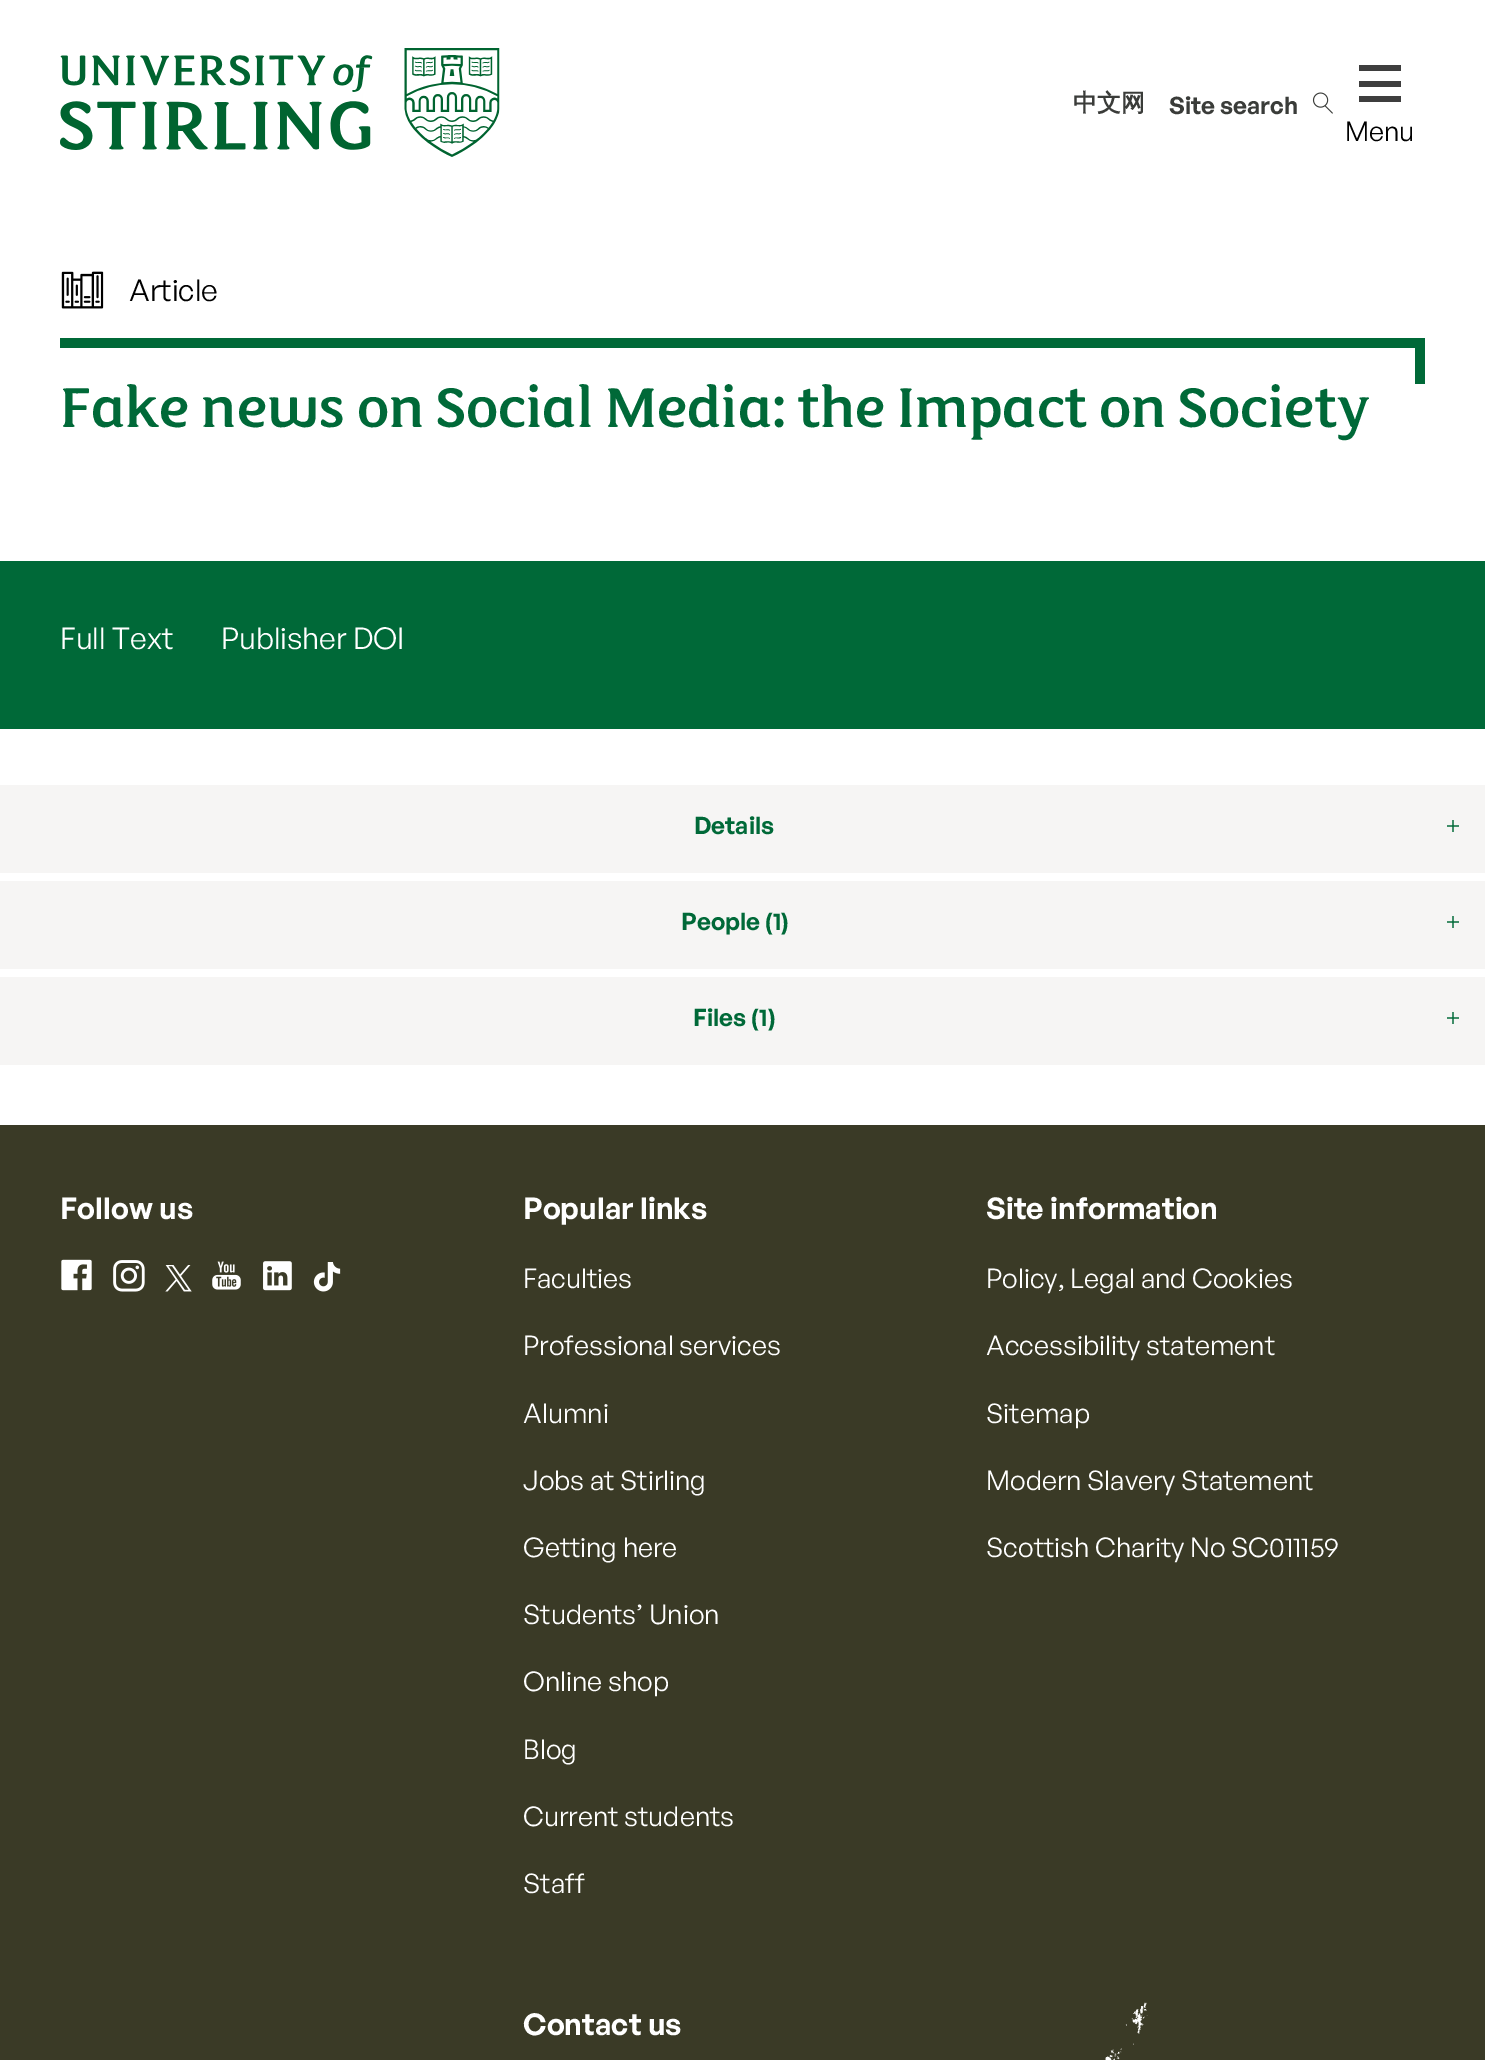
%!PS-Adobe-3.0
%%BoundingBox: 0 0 1485 2060
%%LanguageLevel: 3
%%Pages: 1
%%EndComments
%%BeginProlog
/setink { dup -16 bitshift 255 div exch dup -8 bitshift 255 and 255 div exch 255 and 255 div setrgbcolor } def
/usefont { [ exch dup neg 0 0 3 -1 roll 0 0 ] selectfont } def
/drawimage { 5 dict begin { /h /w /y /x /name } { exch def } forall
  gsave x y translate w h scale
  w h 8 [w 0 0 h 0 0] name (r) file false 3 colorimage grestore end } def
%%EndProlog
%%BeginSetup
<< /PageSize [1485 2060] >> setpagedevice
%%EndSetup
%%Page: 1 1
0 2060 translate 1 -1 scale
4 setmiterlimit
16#FFFFFF setink
0 0 1485 2060 rectfill
(img1.raw) 60 48 440 109 drawimage
/WenQuanYiZenHei-Bold 24 usefont
16#3A3C39 setink
1073 111 moveto (中文网) show
/GeneralSans-SemiBold 24 usefont
1169 114 moveto (Site search) show
(img2.raw) 1312 92 21 22 drawimage
[
    [1359 81 42 6 16#3E3E3E]
    [1359 65 42 6 16#3E3E3E]
    [1359 96 42 6 16#3E3E3E]
] { aload pop setink rectfill } forall
/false-Regular 27 usefont
16#000000 setink
1345 141 moveto (Menu) show
(img3.raw) 61 271 43 38 drawimage
/false-Regular 30 usefont
129 301 moveto (Article) show
16#006938 setink
60 338 1355 10 rectfill
1415 338 10 46 rectfill
/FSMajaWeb-Regular 63 usefont
60 427 moveto (Fake news on Social Media: the Impact on Society) show
0 561 1485 168 rectfill
/false-Regular 30 usefont
16#FFFFFF setink
60 649 moveto (Full Text) show
221 649 moveto (Publisher DOI) show
16#F6F5F4 setink
0 785 1485 88 rectfill
/GeneralSans-SemiBold 24 usefont
16#006938 setink
694 834 moveto (Details) show
/false-Regular 24 usefont
1445 834 moveto (+) show
16#F6F5F4 setink
0 881 1485 88 rectfill
/GeneralSans-SemiBold 24 usefont
16#006938 setink
681 930 moveto (People \(1\)) show
/false-Regular 24 usefont
1445 930 moveto (+) show
16#F6F5F4 setink
0 977 1485 88 rectfill
/GeneralSans-SemiBold 24 usefont
16#006938 setink
693 1026 moveto (Files \(1\)) show
/false-Regular 24 usefont
1445 1026 moveto (+) show
16#3A3A26 setink
0 1125 1485 935 rectfill
/GeneralSans-SemiBold 30 usefont
16#FFFFFF setink
60 1219 moveto (Follow us) show
(img4.raw) 61 1259 31 32 drawimage
(img5.raw) 113 1260 32 32 drawimage
(img6.raw) 165 1265 27 27 drawimage
(img7.raw) 212 1261 29 29 drawimage
(img8.raw) 263 1261 29 30 drawimage
(img9.raw) 313 1262 28 30 drawimage
523 1219 moveto (Popular links) show
/false-Regular 27 usefont
[
    [(Faculties) 523 1288]
    [(Professional services) 523 1355]
    [(Alumni) 523 1423]
    [(Jobs at Stirling) 523 1490]
    [(Getting here) 523 1557]
    [(Students’ Union) 523 1624]
    [(Online shop) 523 1691]
    [(Blog) 523 1759]
    [(Current students) 523 1826]
    [(Staff) 523 1893]
] { aload pop moveto show } forall
/GeneralSans-SemiBold 30 usefont
986 1219 moveto (Site information) show
/false-Regular 27 usefont
[
    [(Policy, Legal and Cookies) 986 1288]
    [(Accessibility statement) 986 1355]
    [(Sitemap) 986 1423]
    [(Modern Slavery Statement) 986 1490]
    [(Scottish Charity No SC011159) 986 1557]
] { aload pop moveto show } forall
/GeneralSans-SemiBold 30 usefont
523 2035 moveto (Contact us) show
(img10.raw) 1105 2002 43 58 drawimage
showpage
%%EOF
